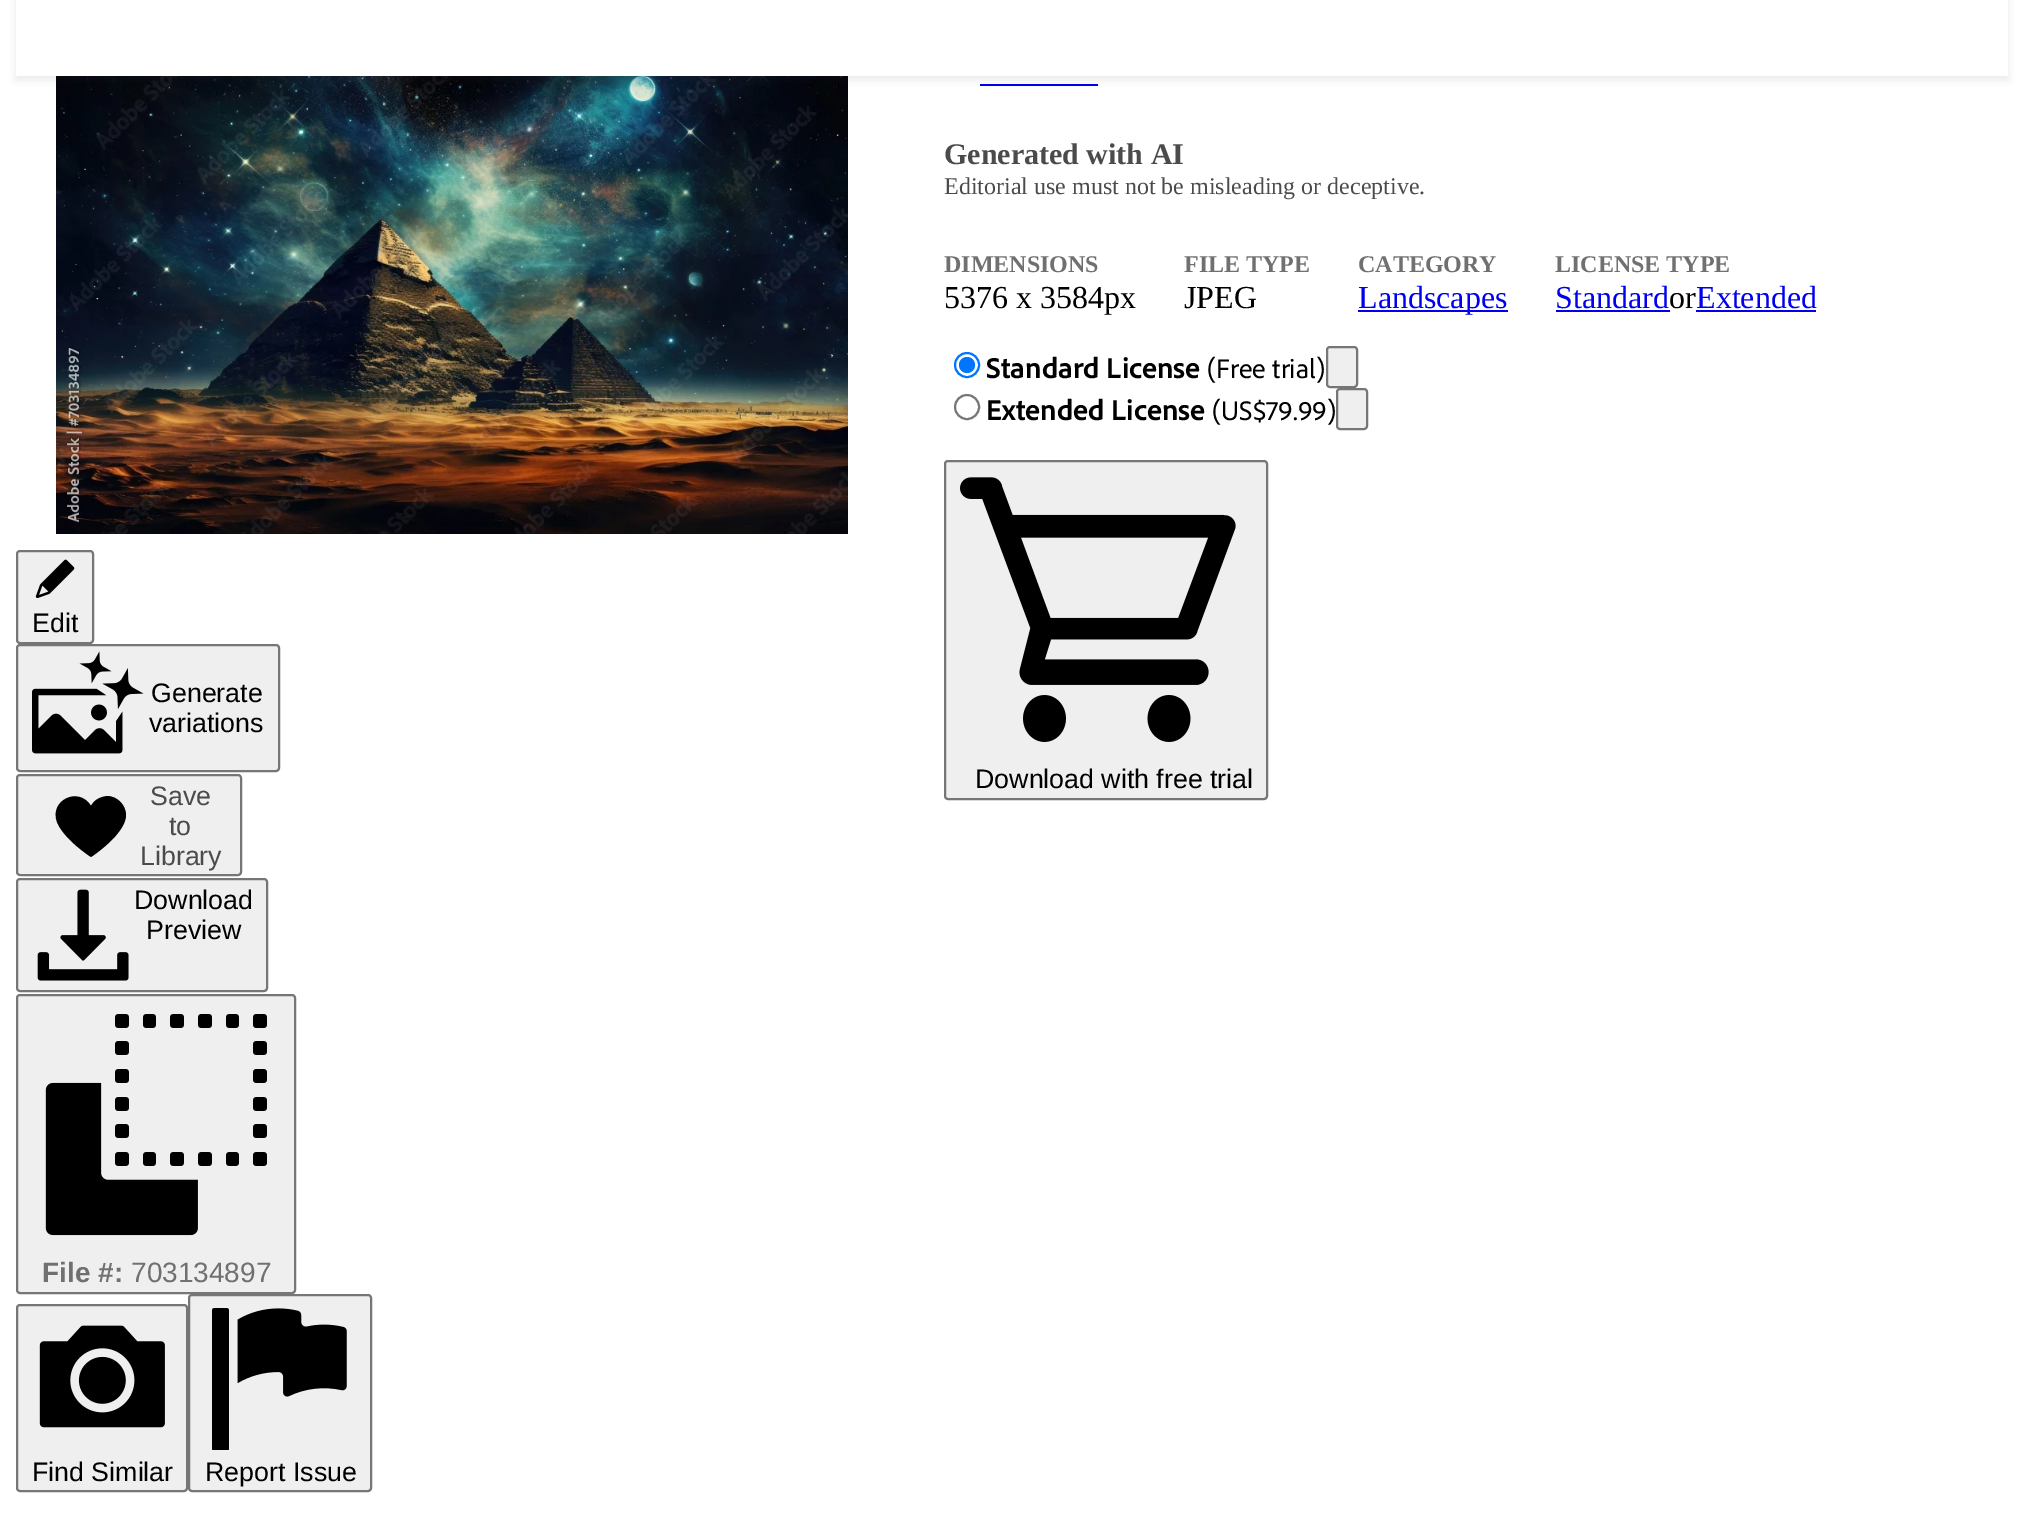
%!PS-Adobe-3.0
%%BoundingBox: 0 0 2023 1525
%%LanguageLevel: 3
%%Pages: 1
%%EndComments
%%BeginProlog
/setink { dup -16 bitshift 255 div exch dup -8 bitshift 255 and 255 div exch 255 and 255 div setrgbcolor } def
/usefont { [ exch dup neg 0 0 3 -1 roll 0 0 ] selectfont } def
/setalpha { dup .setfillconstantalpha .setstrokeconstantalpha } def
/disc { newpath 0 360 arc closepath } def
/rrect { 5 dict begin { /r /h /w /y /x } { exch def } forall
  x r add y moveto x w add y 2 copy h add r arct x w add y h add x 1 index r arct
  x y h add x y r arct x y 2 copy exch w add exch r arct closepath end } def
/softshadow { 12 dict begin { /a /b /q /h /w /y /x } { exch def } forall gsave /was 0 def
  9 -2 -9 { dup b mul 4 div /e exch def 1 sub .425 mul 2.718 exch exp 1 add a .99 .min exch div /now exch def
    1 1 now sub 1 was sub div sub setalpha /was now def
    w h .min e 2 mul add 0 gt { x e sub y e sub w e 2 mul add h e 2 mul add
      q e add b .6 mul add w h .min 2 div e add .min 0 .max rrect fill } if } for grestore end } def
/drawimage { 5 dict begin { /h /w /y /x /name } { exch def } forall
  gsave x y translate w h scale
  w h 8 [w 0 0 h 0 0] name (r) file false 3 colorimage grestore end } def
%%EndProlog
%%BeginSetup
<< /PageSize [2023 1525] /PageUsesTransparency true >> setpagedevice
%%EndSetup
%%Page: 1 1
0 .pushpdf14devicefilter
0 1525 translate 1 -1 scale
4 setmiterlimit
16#FFFFFF setink
0 0 2023 1525 rectfill
16#0000EE setink
980 84 118 2 rectfill
(img2.raw) 56 76 792 458 drawimage
16#343434 setink
16 -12 1992 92 0 4 0.1 softshadow
16#FFFFFF setink
16 0 1992 76 rectfill
/LiberationSerif-Bold 30 usefont
16#4B4B4B setink
944 164 moveto (Generated with AI) show
/LiberationSerif-Regular 24 usefont
944 194 moveto (Editorial use must not be misleading or deceptive.) show
/LiberationSerif-Bold 24 usefont
16#707070 setink
944 272 moveto (DIMENSIONS) show
/LiberationSerif-Regular 32 usefont
16#000000 setink
944 308 moveto (5376 x 3584px) show
/LiberationSerif-Bold 24 usefont
16#707070 setink
1184 272 moveto (FILE TYPE) show
/LiberationSerif-Regular 32 usefont
16#000000 setink
1184 308 moveto (JPEG) show
/LiberationSerif-Bold 24 usefont
16#707070 setink
1358 272 moveto (CATEGORY) show
16#0000EE setink
1358 310 150 2 rectfill
/LiberationSerif-Regular 32 usefont
1358 308 moveto (Landscapes) show
/LiberationSerif-Bold 24 usefont
16#707070 setink
1555 272 moveto (LICENSE TYPE) show
/LiberationSerif-Regular 32 usefont
16#0000EE setink
1555 308 moveto (Standard) show
16#000000 setink
1669 308 moveto (or) show
16#0000EE setink
1556 310 114 2 rectfill
1696 310 120 2 rectfill
1696 308 moveto (Extended) show
16#0075FF setink
2 setlinewidth
967 365 12 disc stroke
967 365 8 disc fill
/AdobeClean-Bold 30 usefont
16#000000 setink
986 378 moveto (Standard License) show
/AdobeClean-Regular 28 usefont
1207 378 moveto (\(Free trial\)) show
16#EFEFEF setink
1327 347 30 40 3 rrect gsave fill grestore
16#767676 setink
stroke
967 407 12 disc stroke
/AdobeClean-Bold 30 usefont
16#000000 setink
986 420 moveto (Extended License) show
/AdobeClean-Regular 28 usefont
1212 420 moveto (\(US$79.99\)) show
16#EFEFEF setink
1337 389 30 40 3 rrect gsave fill grestore
16#767676 setink
stroke
16#EFEFEF setink
945 461 322 338 3 rrect gsave fill grestore
16#767676 setink
stroke
(img1.raw) 960 477 276 265 drawimage
/LiberationSans-Regular 26.75 usefont
16#000000 setink
975 788 moveto (Download with free trial) show
16#EFEFEF setink
17 551 76 92 3 rrect gsave fill grestore
16#767676 setink
stroke
(img3.raw) 35 559 40 39 drawimage
16#000000 setink
32 632 moveto (Edit) show
16#EFEFEF setink
17 645 262 126 3 rrect gsave fill grestore
16#767676 setink
stroke
(img4.raw) 32 651 112 103 drawimage
16#000000 setink
151 702 moveto (Generate) show
149 732 moveto (variations) show
16#EFEFEF setink
17 775 224 100 3 rrect gsave fill grestore
16#767676 setink
stroke
16#000000 setink
107 796 moveto 100 797 94 800 91 806 curveto 79 786 49 800 57 822 curveto 62 835 79 849 91 857 curveto 91 857 126 834 126 815 curveto 126 805 117 796 107 796 curveto closepath eofill
16#4B4B4B setink
[
    [(Save) 150 805]
    [(to) 169 835]
    [(Library) 140 865]
] { aload pop moveto show } forall
16#EFEFEF setink
17 879 250 112 3 rrect gsave fill grestore
16#767676 setink
stroke
(img5.raw) 37 889 92 92 drawimage
16#000000 setink
134 909 moveto (Download) show
146 939 moveto (Preview) show
16#EFEFEF setink
17 995 278 298 3 rrect gsave fill grestore
16#767676 setink
stroke
(img6.raw) 45 1014 222 222 drawimage
/LiberationSans-Bold 28 usefont
16#707070 setink
42 1282 moveto (File #:) show
/LiberationSans-Regular 28 usefont
131 1282 moveto (703134897) show
16#EFEFEF setink
17 1305 170 186 3 rrect gsave fill grestore
16#767676 setink
stroke
(img7.raw) 39 1325 126 103 drawimage
/LiberationSans-Regular 26.75 usefont
16#000000 setink
32 1481 moveto (Find Similar) show
16#EFEFEF setink
189 1295 182 196 3 rrect gsave fill grestore
16#767676 setink
stroke
(img8.raw) 212 1308 135 142 drawimage
16#000000 setink
205 1481 moveto (Report Issue) show
.poppdf14devicefilter showpage
%%EOF
